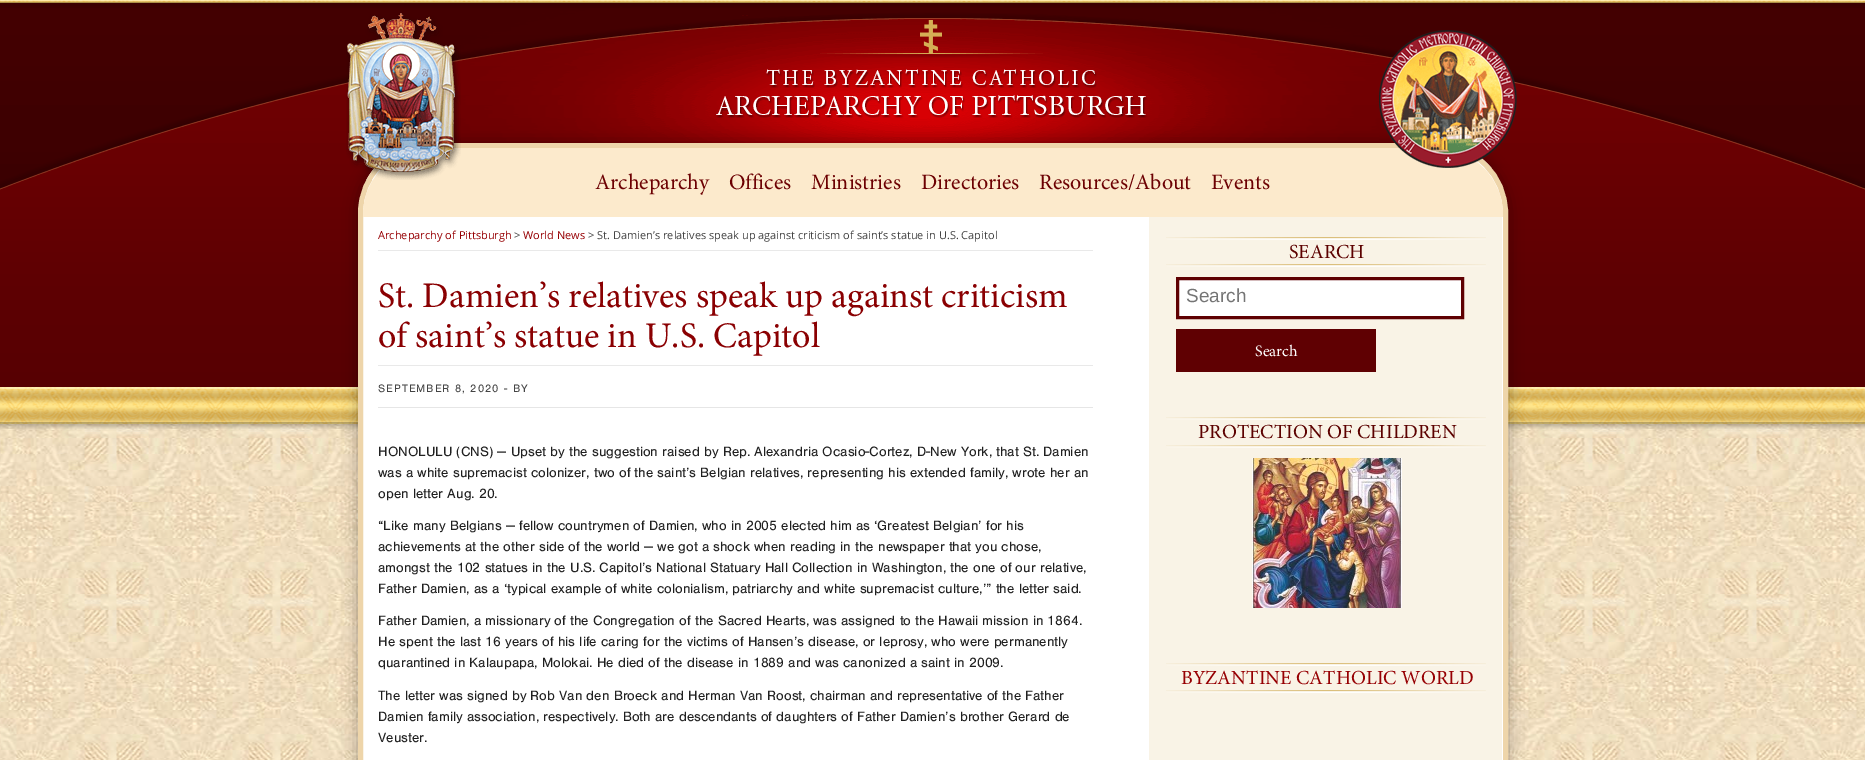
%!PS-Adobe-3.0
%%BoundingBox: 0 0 1865 760
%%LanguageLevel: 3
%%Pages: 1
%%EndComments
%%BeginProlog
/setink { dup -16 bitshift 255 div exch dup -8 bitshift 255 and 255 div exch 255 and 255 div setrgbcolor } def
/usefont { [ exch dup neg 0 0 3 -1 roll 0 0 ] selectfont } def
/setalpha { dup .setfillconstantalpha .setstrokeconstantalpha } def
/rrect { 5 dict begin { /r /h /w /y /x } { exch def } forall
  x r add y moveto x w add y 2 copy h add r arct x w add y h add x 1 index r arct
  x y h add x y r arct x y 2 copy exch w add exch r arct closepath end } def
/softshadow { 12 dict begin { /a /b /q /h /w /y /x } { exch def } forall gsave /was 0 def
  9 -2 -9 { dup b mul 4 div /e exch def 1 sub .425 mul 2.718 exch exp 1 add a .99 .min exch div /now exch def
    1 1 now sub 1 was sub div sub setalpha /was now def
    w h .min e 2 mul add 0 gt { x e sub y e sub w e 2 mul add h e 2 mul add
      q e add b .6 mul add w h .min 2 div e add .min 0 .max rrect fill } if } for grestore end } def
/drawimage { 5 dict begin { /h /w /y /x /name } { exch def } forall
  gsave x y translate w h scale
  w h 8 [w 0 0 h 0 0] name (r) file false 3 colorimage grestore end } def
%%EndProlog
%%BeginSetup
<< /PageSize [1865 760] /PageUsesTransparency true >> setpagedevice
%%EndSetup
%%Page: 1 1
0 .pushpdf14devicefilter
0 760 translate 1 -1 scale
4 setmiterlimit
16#FFFFFF setink
0 0 1865 760 rectfill
(img1.raw) 0 0 1865 760 drawimage
16#000000 setink
358 143 1150 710 70 7.5 0.33 softshadow
16#FFFFFF setink
428 145.5 moveto 1438 145.5 lineto 1475.5 145.5 1505.5 175.5 1505.5 213 curveto 1505.5 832.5 lineto 360.5 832.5 lineto 360.5 213 lineto 360.5 175.5 390.5 145.5 428 145.5 curveto closepath gsave fill grestore
16#EED5AA setink
5 setlinewidth
stroke
16#FCEACC setink
430 148 moveto 1436 148 lineto 1473 148 1503 178 1503 215 curveto 1503 217 lineto 363 217 lineto 363 215 lineto 363 178 393 148 430 148 curveto closepath fill
(img2.raw) 346 13 115 167 drawimage
(img3.raw) 716 20 432 98 drawimage
(img4.raw) 1379 30 138 138 drawimage
/Minion-Regular 22 usefont
16#6C0002 setink
[
    [(Archeparchy) 595 189]
    [(Offices) 729 189]
    [(Ministries) 811 189]
    [(Directories) 921 189]
    [(Resources/About) 1039 189]
    [(Events) 1211 189]
] { aload pop moveto show } forall
16#F9F3E6 setink
1149 217 353 543 rectfill
16#E9E9E9 setink
378 250 715 1 rectfill
/OpenSans-Regular 11 usefont
16#960003 setink
378 239 moveto (Archeparchy of Pittsburgh) show
16#444444 setink
514 239 moveto (>) show
16#960003 setink
523 239 moveto (World News) show
16#444444 setink
588 239 moveto (> St. Damien’s relatives speak up against criticism of saint’s statue in U.S. Capitol) show
16#E6E6E6 setink
378 407 715 1 rectfill
16#E9E9E9 setink
378 365 715 1 rectfill
/Minion-Regular 36 usefont
16#8A0002 setink
378 307 moveto (St. Damien’s relatives speak up against criticism) show
378 347 moveto (of saint’s statue in U.S. Capitol) show
/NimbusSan-Regular 11.25 usefont
16#444444 setink
378 392 moveto 1 0 (SEPTEMBER 8, 2020 - BY) ashow
/NimbusSan-Regular 14 usefont
16#202020 setink
[
    [(HONOLULU \(CNS\) — Upset by the suggestion raised by Rep. Alexandria Ocasio-Cortez, D-New York, that St. Damien) 378 456]
    [(was a white supremacist colonizer, two of the saint’s Belgian relatives, representing his extended family, wrote her an) 378 477]
    [(open letter Aug. 20.) 378 498]
    [(“Like many Belgians — fellow countrymen of Damien, who in 2005 elected him as ‘Greatest Belgian’ for his) 378 530]
    [(achievements at the other side of the world — we got a shock when reading in the newspaper that you chose,) 378 551]
    [(amongst the 102 statues in the U.S. Capitol’s National Statuary Hall Collection in Washington, the one of our relative,) 378 572]
    [(Father Damien, as a ‘typical example of white colonialism, patriarchy and white supremacist culture,’” the letter said.) 378 593]
    [(Father Damien, a missionary of the Congregation of the Sacred Hearts, was assigned to the Hawaii mission in 1864.) 378 625]
    [(He spent the last 16 years of his life caring for the victims of Hansen’s disease, or leprosy, who were permanently) 378 646]
    [(quarantined in Kalaupapa, Molokai. He died of the disease in 1889 and was canonized a saint in 2009.) 378 667]
    [(The letter was signed by Rob Van den Broeck and Herman Van Roost, chairman and representative of the Father) 378 700]
    [(Damien family association, respectively. Both are descendants of daughters of Father Damien’s brother Gerard de) 378 721]
    [(Veuster.) 378 742]
] { aload pop moveto show } forall
(img5.raw) 1166 237 320 30 drawimage
/Minion-Regular 20 usefont
16#5C0100 setink
1289 258 moveto (SEARCH) show
16#FFFFFF setink
1177.5 278.5 moveto 1462.5 278.5 lineto 1462.5 317.5 lineto 1177.5 317.5 lineto closepath gsave fill grestore
16#5F0002 setink
3 setlinewidth
stroke
/LiberationSans-Regular 19 usefont
16#757575 setink
1186 302 moveto (Search) show
16#5F0002 setink
1176 329 200 43 rectfill
/Minion-Regular 16 usefont
16#FFFFFF setink
1255 356 moveto (Search) show
(img6.raw) 1166 417 320 31 drawimage
/Minion-Regular 20 usefont
16#5C0100 setink
1198 438 moveto (PROTECTION OF CHILDREN) show
(img7.raw) 1252 458 150 150 drawimage
(img5.raw) 1166 663 320 30 drawimage
16#960003 setink
1181 684 moveto (BYZANTINE CATHOLIC WORLD) show
.poppdf14devicefilter showpage
%%EOF
